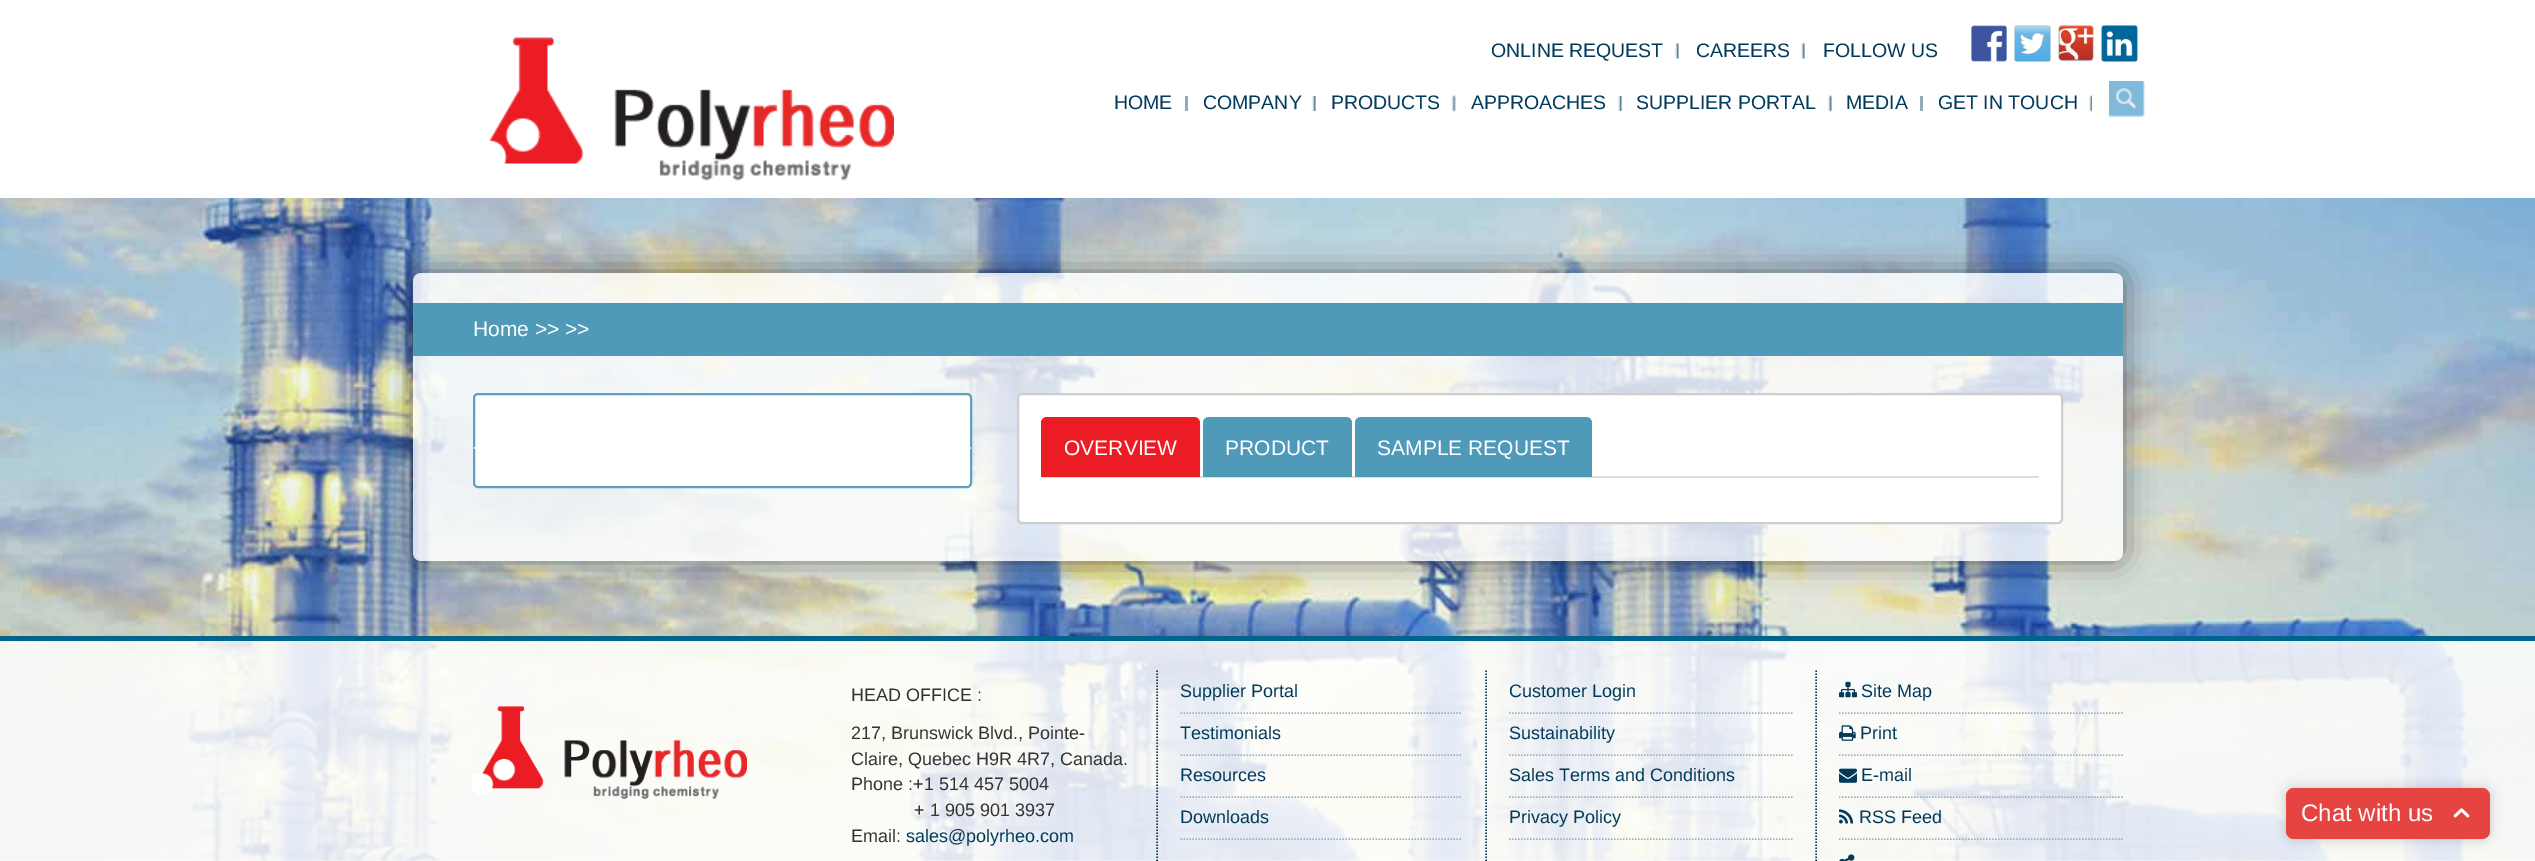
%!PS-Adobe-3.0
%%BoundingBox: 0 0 2535 861
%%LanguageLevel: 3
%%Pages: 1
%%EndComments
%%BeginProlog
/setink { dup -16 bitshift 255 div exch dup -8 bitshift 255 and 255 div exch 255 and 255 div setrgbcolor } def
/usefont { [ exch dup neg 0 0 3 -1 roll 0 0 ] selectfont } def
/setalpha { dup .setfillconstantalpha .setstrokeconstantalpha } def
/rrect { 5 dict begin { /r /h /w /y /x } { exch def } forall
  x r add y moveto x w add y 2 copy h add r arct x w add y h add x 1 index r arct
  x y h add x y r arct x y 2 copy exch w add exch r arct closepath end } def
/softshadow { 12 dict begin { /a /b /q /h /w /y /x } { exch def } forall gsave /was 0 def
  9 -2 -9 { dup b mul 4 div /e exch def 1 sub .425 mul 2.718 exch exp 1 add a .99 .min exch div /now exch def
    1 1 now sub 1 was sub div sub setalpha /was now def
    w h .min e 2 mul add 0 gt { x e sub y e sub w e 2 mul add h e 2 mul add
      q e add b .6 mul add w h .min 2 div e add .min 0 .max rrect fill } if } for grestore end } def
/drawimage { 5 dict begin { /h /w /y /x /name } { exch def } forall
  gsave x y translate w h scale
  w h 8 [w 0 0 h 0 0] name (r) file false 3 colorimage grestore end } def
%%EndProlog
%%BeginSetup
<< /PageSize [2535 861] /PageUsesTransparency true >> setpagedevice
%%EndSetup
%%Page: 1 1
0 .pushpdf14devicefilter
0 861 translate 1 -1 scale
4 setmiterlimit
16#FFFFFF setink
0 0 2535 861 rectfill
(img1.raw) 489 37 405 144 drawimage
(img2.raw) 1675 43 4 16 drawimage
/LiberationSans-Regular 19.5 usefont
16#013A5A setink
1491 57 moveto (ONLINE REQUEST) show
(img2.raw) 1801 43 4 16 drawimage
1696 57 moveto (CAREERS) show
1823 57 moveto (FOLLOW US) show
(img3.raw) 1971 25 36 37 drawimage
(img4.raw) 2014 25 37 37 drawimage
(img5.raw) 2058 25 36 37 drawimage
(img6.raw) 2101 25 37 37 drawimage
16#94ACB9 setink
1185 96 3 15 rectfill
16#013A5A setink
1114 109 moveto (HOME) show
(img7.raw) 1312 96 4 15 drawimage
1203 109 moveto (COMPANY) show
(img8.raw) 1451 95 5 17 drawimage
1331 109 moveto (PRODUCTS) show
(img7.raw) 1618 96 4 15 drawimage
1471 109 moveto (APPROACHES) show
(img9.raw) 1828 95 4 17 drawimage
1636 109 moveto (SUPPLIER PORTAL) show
16#94ACB9 setink
1920 96 3 15 rectfill
16#013A5A setink
1846 109 moveto (MEDIA) show
(img10.raw) 2089 95 3 17 drawimage
1938 109 moveto (GET IN TOUCH) show
(img11.raw) 2109 81 36 36 drawimage
(img12.raw) 0 198 2535 663 drawimage
gsave
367 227 moveto 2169 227 lineto 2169 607 lineto 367 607 lineto closepath 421 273 moveto 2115 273 lineto 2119.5 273 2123 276.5 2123 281 curveto 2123 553 lineto 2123 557.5 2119.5 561 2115 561 curveto 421 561 lineto 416.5 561 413 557.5 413 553 curveto 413 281 lineto 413 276.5 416.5 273 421 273 curveto closepath eoclip newpath
16#000000 setink
413 273 1710 288 8 15 0.5 softshadow
grestore
0.8 setalpha
16#FFFFFF setink
413 273 1710 288 8 rrect fill
1 setalpha
16#4F99B9 setink
413 303 1710 53 rectfill
/LiberationSans-Regular 21 usefont
16#FFFFFF setink
473 336 moveto (Home >> >>) show
474 394 497 93 4 rrect gsave fill grestore
16#5DA1BE setink
2 setlinewidth
stroke
0.99 setalpha
16#FFFFFF setink
474 447 497 2 rectfill
1 setalpha
1018 394 1044 129 4 rrect gsave fill grestore
16#CECECE setink
stroke
16#DDDDDD setink
1041 476 998 2 rectfill
16#EB1C24 setink
1047 417 moveto 1194 417 lineto 1197.5 417 1200 419.5 1200 423 curveto 1200 477 lineto 1041 477 lineto 1041 423 lineto 1041 419.5 1043.5 417 1047 417 curveto closepath fill
16#FFFFFF setink
1064 455 moveto (OVERVIEW) show
16#4F99B9 setink
1209 417 moveto 1346 417 lineto 1349.5 417 1352 419.5 1352 423 curveto 1352 477 lineto 1203 477 lineto 1203 423 lineto 1203 419.5 1205.5 417 1209 417 curveto closepath fill
16#FFFFFF setink
1225 455 moveto (PRODUCT) show
16#4F99B9 setink
1361 417 moveto 1586 417 lineto 1589.5 417 1592 419.5 1592 423 curveto 1592 477 lineto 1355 477 lineto 1355 423 lineto 1355 419.5 1357.5 417 1361 417 curveto closepath fill
16#FFFFFF setink
1377 455 moveto (SAMPLE REQUEST) show
0.85 setalpha
0 641 2535 220 rectfill
1 setalpha
16#00658D setink
0 636 2535 5 rectfill
(img13.raw) 471 706 276 94 drawimage
16#013A5A setink
1.5 setlinewidth
[1.5 1.5] 0 setdash
1157 670.5 moveto 1157 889.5 lineto stroke
/LiberationSans-Regular 18 usefont
16#333333 setink
[
    [(HEAD OFFICE :) 851 701]
    [(217, Brunswick Blvd., Pointe-) 851 739]
    [(Claire, Quebec H9R 4R7, Canada.) 851 765]
    [(Phone :+1 514 457 5004) 851 790]
    [(+ 1 905 901 3937) 914 816]
    [(Email:) 851 842]
] { aload pop moveto show } forall
16#013A5A setink
906 842 moveto (sales@polyrheo.com) show
1486 670.5 moveto 1486 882 lineto stroke
16#9AB2BD setink
1180.5 713 moveto 1462.5 713 lineto stroke
16#013A5A setink
1180 697 moveto (Supplier Portal) show
16#9AB2BD setink
1180.5 755 moveto 1462.5 755 lineto stroke
16#013A5A setink
1180 739 moveto (Testimonials) show
16#9AB2BD setink
1180.5 797 moveto 1462.5 797 lineto stroke
16#013A5A setink
1180 781 moveto (Resources) show
16#9AB2BD setink
1180.5 839 moveto 1462.5 839 lineto stroke
16#013A5A setink
1180 823 moveto (Downloads) show
1816 670.5 moveto 1816 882 lineto stroke
16#9AB2BD setink
1509 713 moveto 1792.5 713 lineto stroke
16#013A5A setink
1509 697 moveto (Customer Login) show
16#9AB2BD setink
1509 755 moveto 1792.5 755 lineto stroke
16#013A5A setink
1509 739 moveto (Sustainability) show
16#9AB2BD setink
1509 797 moveto 1792.5 797 lineto stroke
16#013A5A setink
1509 781 moveto (Sales Terms and Conditions) show
16#9AB2BD setink
1509 839 moveto 1792.5 839 lineto stroke
16#013A5A setink
1509 823 moveto (Privacy Policy) show
16#9AB2BD setink
1839 713 moveto 2122.5 713 lineto stroke
(img14.raw) 1839 681 18 17 drawimage
16#013A5A setink
1861 697 moveto (Site Map) show
16#9AB2BD setink
1839 755 moveto 2122.5 755 lineto stroke
(img15.raw) 1839 725 17 16 drawimage
16#013A5A setink
1860 739 moveto (Print) show
16#9AB2BD setink
1839 797 moveto 2122.5 797 lineto stroke
(img16.raw) 1839 768 18 15 drawimage
16#013A5A setink
1861 781 moveto (E-mail) show
16#9AB2BD setink
1839 839 moveto 2122.5 839 lineto stroke
(img17.raw) 1839 809 15 15 drawimage
16#013A5A setink
1859 823 moveto (RSS Feed) show
(img18.raw) 1839 854 16 7 drawimage
16#000000 setink
2286 788 204 51 8 6 0.2 softshadow
16#E54440 setink
2286 788 204 51 8 rrect fill
/LiberationSans-Regular 24 usefont
16#FFFFFF setink
2301 821 moveto (Chat with us) show
(img19.raw) 2453 808 17 10 drawimage
.poppdf14devicefilter showpage
%%EOF
